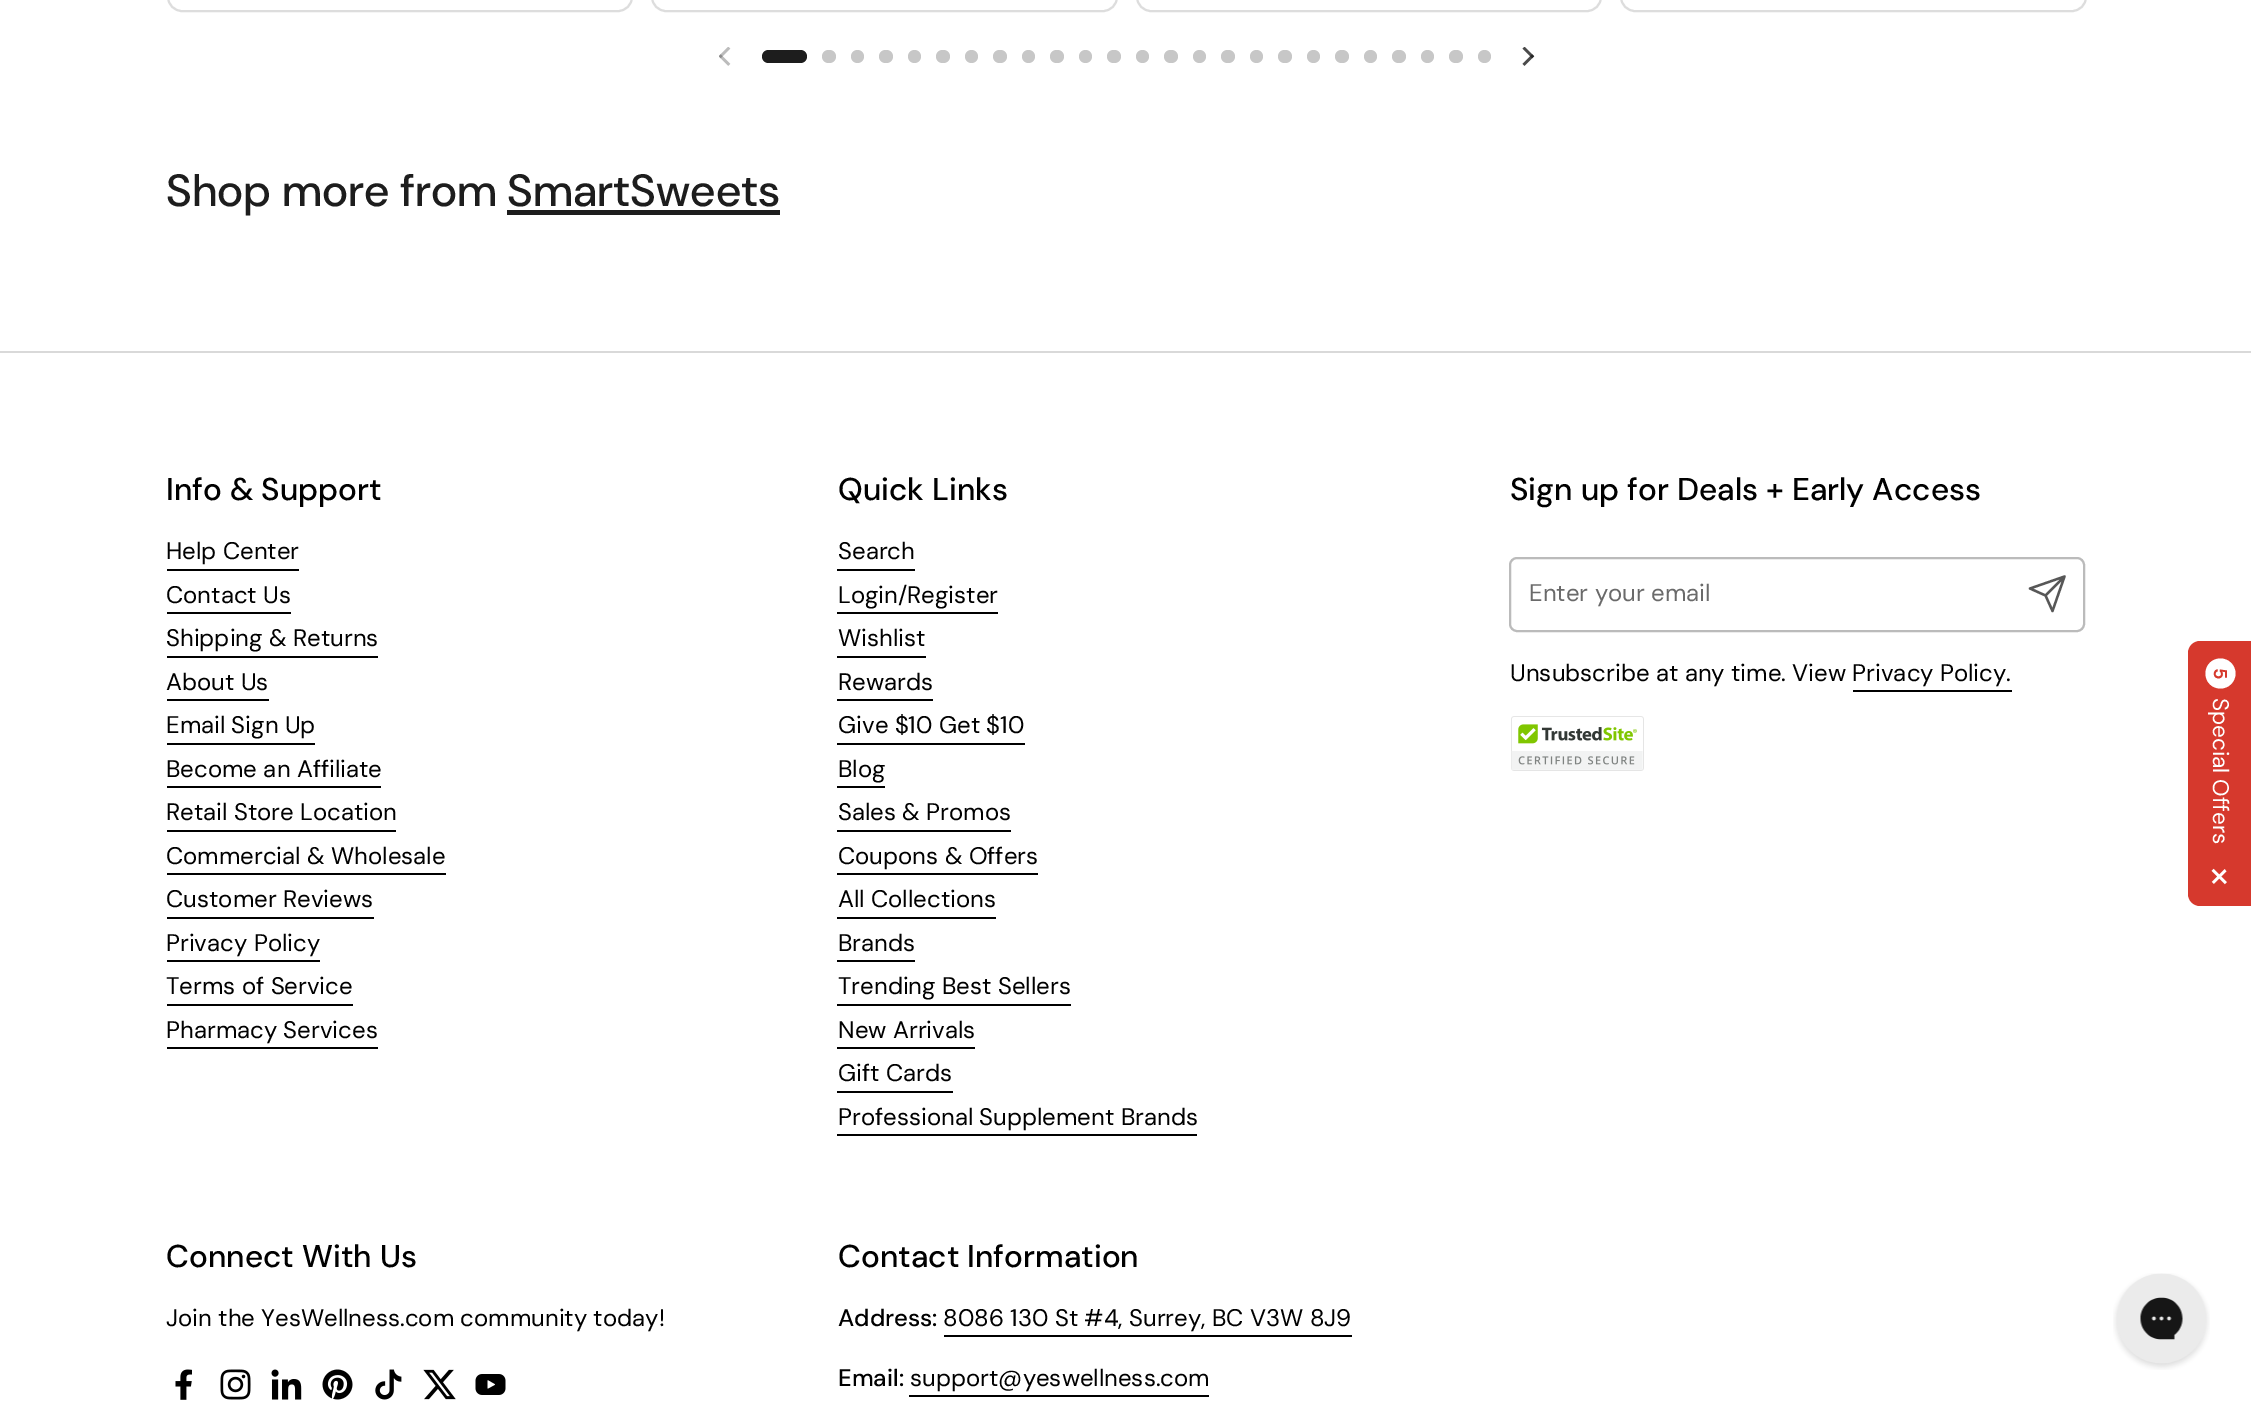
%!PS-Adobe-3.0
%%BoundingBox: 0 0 2251 1404
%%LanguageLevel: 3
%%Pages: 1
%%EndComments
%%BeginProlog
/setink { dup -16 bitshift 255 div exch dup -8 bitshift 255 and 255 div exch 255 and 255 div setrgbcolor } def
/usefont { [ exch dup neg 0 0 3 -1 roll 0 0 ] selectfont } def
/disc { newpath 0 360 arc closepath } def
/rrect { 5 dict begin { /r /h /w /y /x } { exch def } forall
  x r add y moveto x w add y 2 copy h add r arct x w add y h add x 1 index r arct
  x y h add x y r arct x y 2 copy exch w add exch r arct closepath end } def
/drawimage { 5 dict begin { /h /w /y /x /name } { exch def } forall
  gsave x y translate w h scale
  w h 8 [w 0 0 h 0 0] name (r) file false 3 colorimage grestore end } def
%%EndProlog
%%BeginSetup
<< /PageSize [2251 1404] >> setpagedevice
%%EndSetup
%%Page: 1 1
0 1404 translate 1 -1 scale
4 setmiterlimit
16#FFFFFF setink
0 0 2251 1404 rectfill
16#DDDDDD setink
2 setlinewidth
168 -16 464 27 14 rrect stroke
652 -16 465 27 14 rrect stroke
1137 -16 464 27 14 rrect stroke
1621 -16 465 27 14 rrect stroke
(img1.raw) 719 47 12 19 drawimage
16#1D1D1D setink
762 50 45 13 6.5 rrect fill
16#C7C7C7 setink
822 50 14 13 6.5 rrect fill
857.5 56.5 6.5 disc fill
879 50 14 13 6.5 rrect fill
914.5 56.5 6.5 disc fill
936 50 14 13 6.5 rrect fill
971.5 56.5 6.5 disc fill
993 50 14 13 6.5 rrect fill
1028.5 56.5 6.5 disc fill
1050 50 14 13 6.5 rrect fill
1085.5 56.5 6.5 disc fill
1107 50 14 13 6.5 rrect fill
1142.5 56.5 6.5 disc fill
1164 50 14 13 6.5 rrect fill
1199.5 56.5 6.5 disc fill
1221 50 14 13 6.5 rrect fill
1256.5 56.5 6.5 disc fill
1278 50 14 13 6.5 rrect fill
1313.5 56.5 6.5 disc fill
1335 50 14 13 6.5 rrect fill
1370.5 56.5 6.5 disc fill
1392 50 14 13 6.5 rrect fill
1427.5 56.5 6.5 disc fill
1449 50 14 13 6.5 rrect fill
1484.5 56.5 6.5 disc fill
(img2.raw) 1522 47 13 19 drawimage
/DMSans-Medium 45 usefont
16#1D1D1D setink
166 206 moveto (Shop more from SmartSweets) show
507 210 273 5 rectfill
16#D9D9D9 setink
0 351 2251 2 rectfill
/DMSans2-Medium 31.5 usefont
16#000000 setink
166 500 moveto (Info & Support) show
/DMSans-Regular 24 usefont
166 559 moveto (Help Center) show
167 569 132 2 rectfill
166 603 moveto (Contact Us) show
167 612 124 2 rectfill
166 646 moveto (Shipping & Returns) show
167 656 211 2 rectfill
166 690 moveto (About Us) show
167 699 102 2 rectfill
166 733 moveto (Email Sign Up) show
167 743 148 2 rectfill
166 777 moveto (Become an Affiliate) show
167 786 214 2 rectfill
166 820 moveto (Retail Store Location) show
167 830 229 2 rectfill
166 864 moveto (Commercial & Wholesale) show
167 873 279 2 rectfill
166 907 moveto (Customer Reviews) show
167 917 207 2 rectfill
166 951 moveto (Privacy Policy) show
167 960 153 2 rectfill
166 994 moveto (Terms of Service) show
167 1004 186 2 rectfill
166 1038 moveto (Pharmacy Services) show
167 1047 211 2 rectfill
/DMSans2-Medium 31.5 usefont
838 500 moveto (Quick Links) show
/DMSans-Regular 24 usefont
838 559 moveto (Search) show
837 569 78 2 rectfill
838 603 moveto (Login/Register) show
837 612 161 2 rectfill
838 646 moveto (Wishlist) show
837 656 89 2 rectfill
838 690 moveto (Rewards) show
837 699 96 2 rectfill
838 733 moveto (Give $10 Get $10) show
837 743 188 2 rectfill
838 777 moveto (Blog) show
837 786 48 2 rectfill
838 820 moveto (Sales & Promos) show
837 830 174 2 rectfill
838 864 moveto (Coupons & Offers) show
837 873 201 2 rectfill
838 907 moveto (All Collections) show
837 917 159 2 rectfill
838 951 moveto (Brands) show
837 960 78 2 rectfill
838 994 moveto (Trending Best Sellers) show
837 1004 234 2 rectfill
838 1038 moveto (New Arrivals) show
837 1047 138 2 rectfill
838 1081 moveto (Gift Cards) show
837 1091 116 2 rectfill
838 1125 moveto (Professional Supplement Brands) show
837 1134 360 2 rectfill
/DMSans2-Medium 31.5 usefont
1510 500 moveto (Sign up for Deals + Early Access) show
16#BBBBBB setink
1510 558 574 73 7 rrect stroke
/DMSans-Regular 24 usefont
16#6A6A6A setink
1529 601 moveto (Enter your email) show
16#575757 setink
2.3 setlinewidth
1 setlinecap
1 setlinejoin
2064.5 576.5 moveto 2045.5 595.5 lineto 2064.5 576.5 moveto 2052.5 611 lineto 2045.5 595.5 lineto 2030 588.5 lineto closepath stroke
16#000000 setink
1510 681 moveto (Unsubscribe at any time. View Privacy Policy.) show
1853 690 159 2 rectfill
(img3.raw) 1511 716 133 55 drawimage
/DMSans2-Medium 31.5 usefont
166 1267 moveto (Connect With Us) show
/DMSans-Regular 24 usefont
166 1326 moveto (Join the YesWellness.com community today!) show
(img4.raw) 175 1369 17 31 drawimage
(img5.raw) 220 1369 31 31 drawimage
(img6.raw) 271 1369 31 31 drawimage
(img7.raw) 322 1369 31 31 drawimage
(img8.raw) 375 1369 27 31 drawimage
(img9.raw) 423 1369 33 31 drawimage
(img10.raw) 475 1374 31 21 drawimage
/DMSans2-Medium 31.5 usefont
838 1267 moveto (Contact Information) show
/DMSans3-Medium 24 usefont
838 1326 moveto (Address:) show
/DMSans-Regular 24 usefont
943 1326 moveto (8086 130 St #4, Surrey, BC V3W 8J9) show
944 1335 408 2 rectfill
/DMSans3-Medium 24 usefont
838 1386 moveto (Email:) show
/DMSans-Regular 24 usefont
910 1386 moveto (support@yeswellness.com) show
909 1395 300 2 rectfill
16#D6392D setink
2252 641 moveto 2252 906 lineto 2200 906 lineto 2194 906 2188 901 2188 894 curveto 2188 653 lineto 2188 646 2194 641 2200 641 curveto closepath fill
16#FFFFFF setink
2235.5 673.5 moveto 2235.5 682 2228.5 688.5 2220.5 688.5 curveto 2212 688.5 2205.5 682 2205.5 673.5 curveto 2205.5 665 2212 658.5 2220.5 658.5 curveto 2228.5 658.5 2235.5 665 2235.5 673.5 curveto closepath fill
/DMSans-Bold 18 usefont
16#D6392D setink
gsave 2214 668 translate 90 rotate 0 0 moveto (5) show grestore
/DMSans2-Regular 22.5 usefont
16#FFFFFF setink
gsave 2213 698 translate 90 rotate 0 0 moveto (Special Offers) show grestore
/DMSans3-Regular 42 usefont
gsave 2207 865 translate 90 rotate 0 0 moveto (×) show grestore
(img11.raw) 2113 1273 97 97 drawimage
showpage
%%EOF
